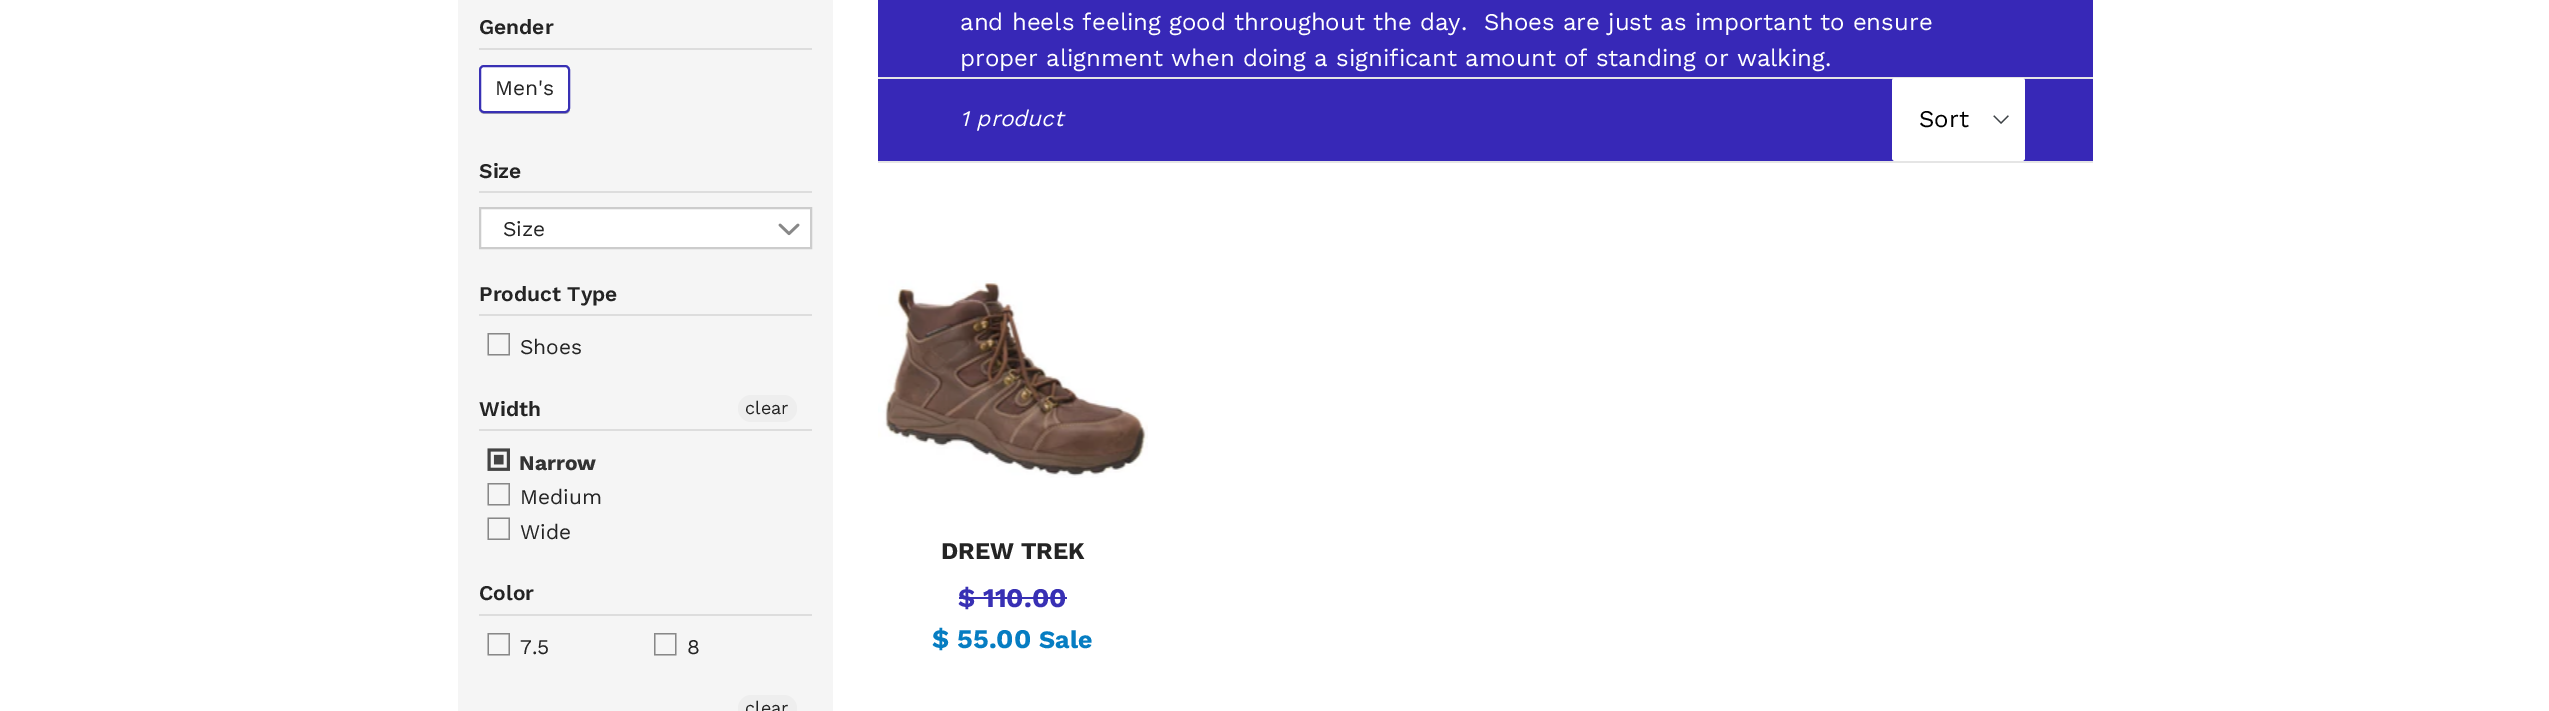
%!PS-Adobe-3.0
%%BoundingBox: 0 0 2549 711
%%LanguageLevel: 3
%%Pages: 1
%%EndComments
%%BeginProlog
/setink { dup -16 bitshift 255 div exch dup -8 bitshift 255 and 255 div exch 255 and 255 div setrgbcolor } def
/usefont { [ exch dup neg 0 0 3 -1 roll 0 0 ] selectfont } def
/rrect { 5 dict begin { /r /h /w /y /x } { exch def } forall
  x r add y moveto x w add y 2 copy h add r arct x w add y h add x 1 index r arct
  x y h add x y r arct x y 2 copy exch w add exch r arct closepath end } def
/drawimage { 5 dict begin { /h /w /y /x /name } { exch def } forall
  gsave x y translate w h scale
  w h 8 [w 0 0 h 0 0] name (r) file false 3 colorimage grestore end } def
%%EndProlog
%%BeginSetup
<< /PageSize [2549 711] >> setpagedevice
%%EndSetup
%%Page: 1 1
0 711 translate 1 -1 scale
4 setmiterlimit
16#FFFFFF setink
0 0 2549 711 rectfill
16#F5F5F5 setink
458 0 375 711 rectfill
16#DDDDDD setink
479 48 333 2 rectfill
/WorkSans-SemiBold 21 usefont
16#242424 setink
479 34 moveto (Gender) show
16#B2B2B2 setink
479 110 moveto 480 112 482 114 484 114 curveto 565 114 lineto 568 114 570 112 570 109 curveto 570 108 lineto 570 110 568 112 566 112 curveto 483 112 lineto 481 112 480 112 479 110 curveto closepath fill
16#FFFFFF setink
480 66 89 46 4 rrect gsave fill grestore
16#3830B4 setink
2 setlinewidth
stroke
/WorkSans-Regular 21 usefont
16#242424 setink
495 95 moveto (Men's) show
16#DDDDDD setink
479 191 333 2 rectfill
/WorkSans-SemiBold 21 usefont
16#242424 setink
479 178 moveto (Size) show
16#FFFFFF setink
480 208 moveto 811 208 lineto 811 248 lineto 480 248 lineto closepath gsave fill grestore
16#CCCCCC setink
stroke
/WorkSans-Regular 21 usefont
16#242424 setink
503 236 moveto (Size) show
(img1.raw) 778 223 22 13 drawimage
16#DDDDDD setink
479 314 333 2 rectfill
/WorkSans-SemiBold 21 usefont
16#242424 setink
479 301 moveto (Product Type) show
16#888888 setink
489 334.5 moveto 489 354 lineto 508.5 354 lineto 508.5 334.5 lineto closepath 487.5 333 moveto 510 333 lineto 510 355.5 lineto 487.5 355.5 lineto closepath fill
/WorkSans-Regular 21 usefont
16#242424 setink
520 354 moveto (Shoes) show
16#DDDDDD setink
479 429 333 2 rectfill
/WorkSans-SemiBold 21 usefont
16#242424 setink
479 416 moveto (Width) show
16#EEEEEE setink
738 395 59 27 13.5 rrect fill
/WorkSans-Regular 18 usefont
16#242424 setink
745 414 moveto (clear) show
(img2.raw) 487 448 23 23 drawimage
/WorkSans-Bold 21 usefont
16#333333 setink
519 470 moveto (Narrow) show
16#888888 setink
489 484.5 moveto 489 504 lineto 508.5 504 lineto 508.5 484.5 lineto closepath 487.5 483 moveto 510 483 lineto 510 505.5 lineto 487.5 505.5 lineto closepath fill
/WorkSans-Regular 21 usefont
16#242424 setink
520 504 moveto (Medium) show
16#888888 setink
489 519 moveto 489 538.5 lineto 508.5 538.5 lineto 508.5 519 lineto closepath 487.5 517.5 moveto 510 517.5 lineto 510 540 lineto 487.5 540 lineto closepath fill
16#242424 setink
520 539 moveto (Wide) show
16#DDDDDD setink
479 614 333 2 rectfill
/WorkSans-SemiBold 21 usefont
16#242424 setink
479 600 moveto (Color) show
16#888888 setink
489 634.5 moveto 489 654 lineto 508.5 654 lineto 508.5 634.5 lineto closepath 487.5 633 moveto 510 633 lineto 510 655.5 lineto 487.5 655.5 lineto closepath fill
/WorkSans-Regular 21 usefont
16#242424 setink
520 654 moveto (7.5) show
16#888888 setink
655.5 634.5 moveto 655.5 654 lineto 675 654 lineto 675 634.5 lineto closepath 654 633 moveto 676.5 633 lineto 676.5 655.5 lineto 654 655.5 lineto closepath fill
16#242424 setink
687 654 moveto (8) show
16#EEEEEE setink
738 695 59 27 13.5 rrect fill
/WorkSans-Regular 18 usefont
16#242424 setink
745 714 moveto (clear) show
16#3728B7 setink
878 0 1215 161 rectfill
/WorkSans-Regular 24 usefont
16#FFFFFF setink
960 30 moveto (and heels feeling good throughout the day.  Shoes are just as important to ensure) show
960 66 moveto (proper alignment when doing a significant amount of standing or walking.) show
16#E5E5E5 setink
878 77 1215 2 rectfill
878 161 1215 2 rectfill
/WorkSans-Italic 22.5 usefont
16#FFFFFF setink
960 126 moveto (1 product) show
1892 78 133 83 3 rrect fill
(img3.raw) 1993 115 16 9 drawimage
/WorkSans-Regular 24 usefont
16#000000 setink
1919 127 moveto (Sort) show
(img4.raw) 878 280 270 198 drawimage
/WorkSans-Bold 24 usefont
16#242424 setink
941 559 moveto (DREW TREK) show
/WorkSans-Bold 27 usefont
16#3830B4 setink
958 607 moveto ($ 110.00) show
959 597 108 2 rectfill
16#067DC2 setink
932 648 moveto ($ 55.00) show
/WorkSans-Bold 25 usefont
1039 648 moveto (Sale) show
showpage
%%EOF
